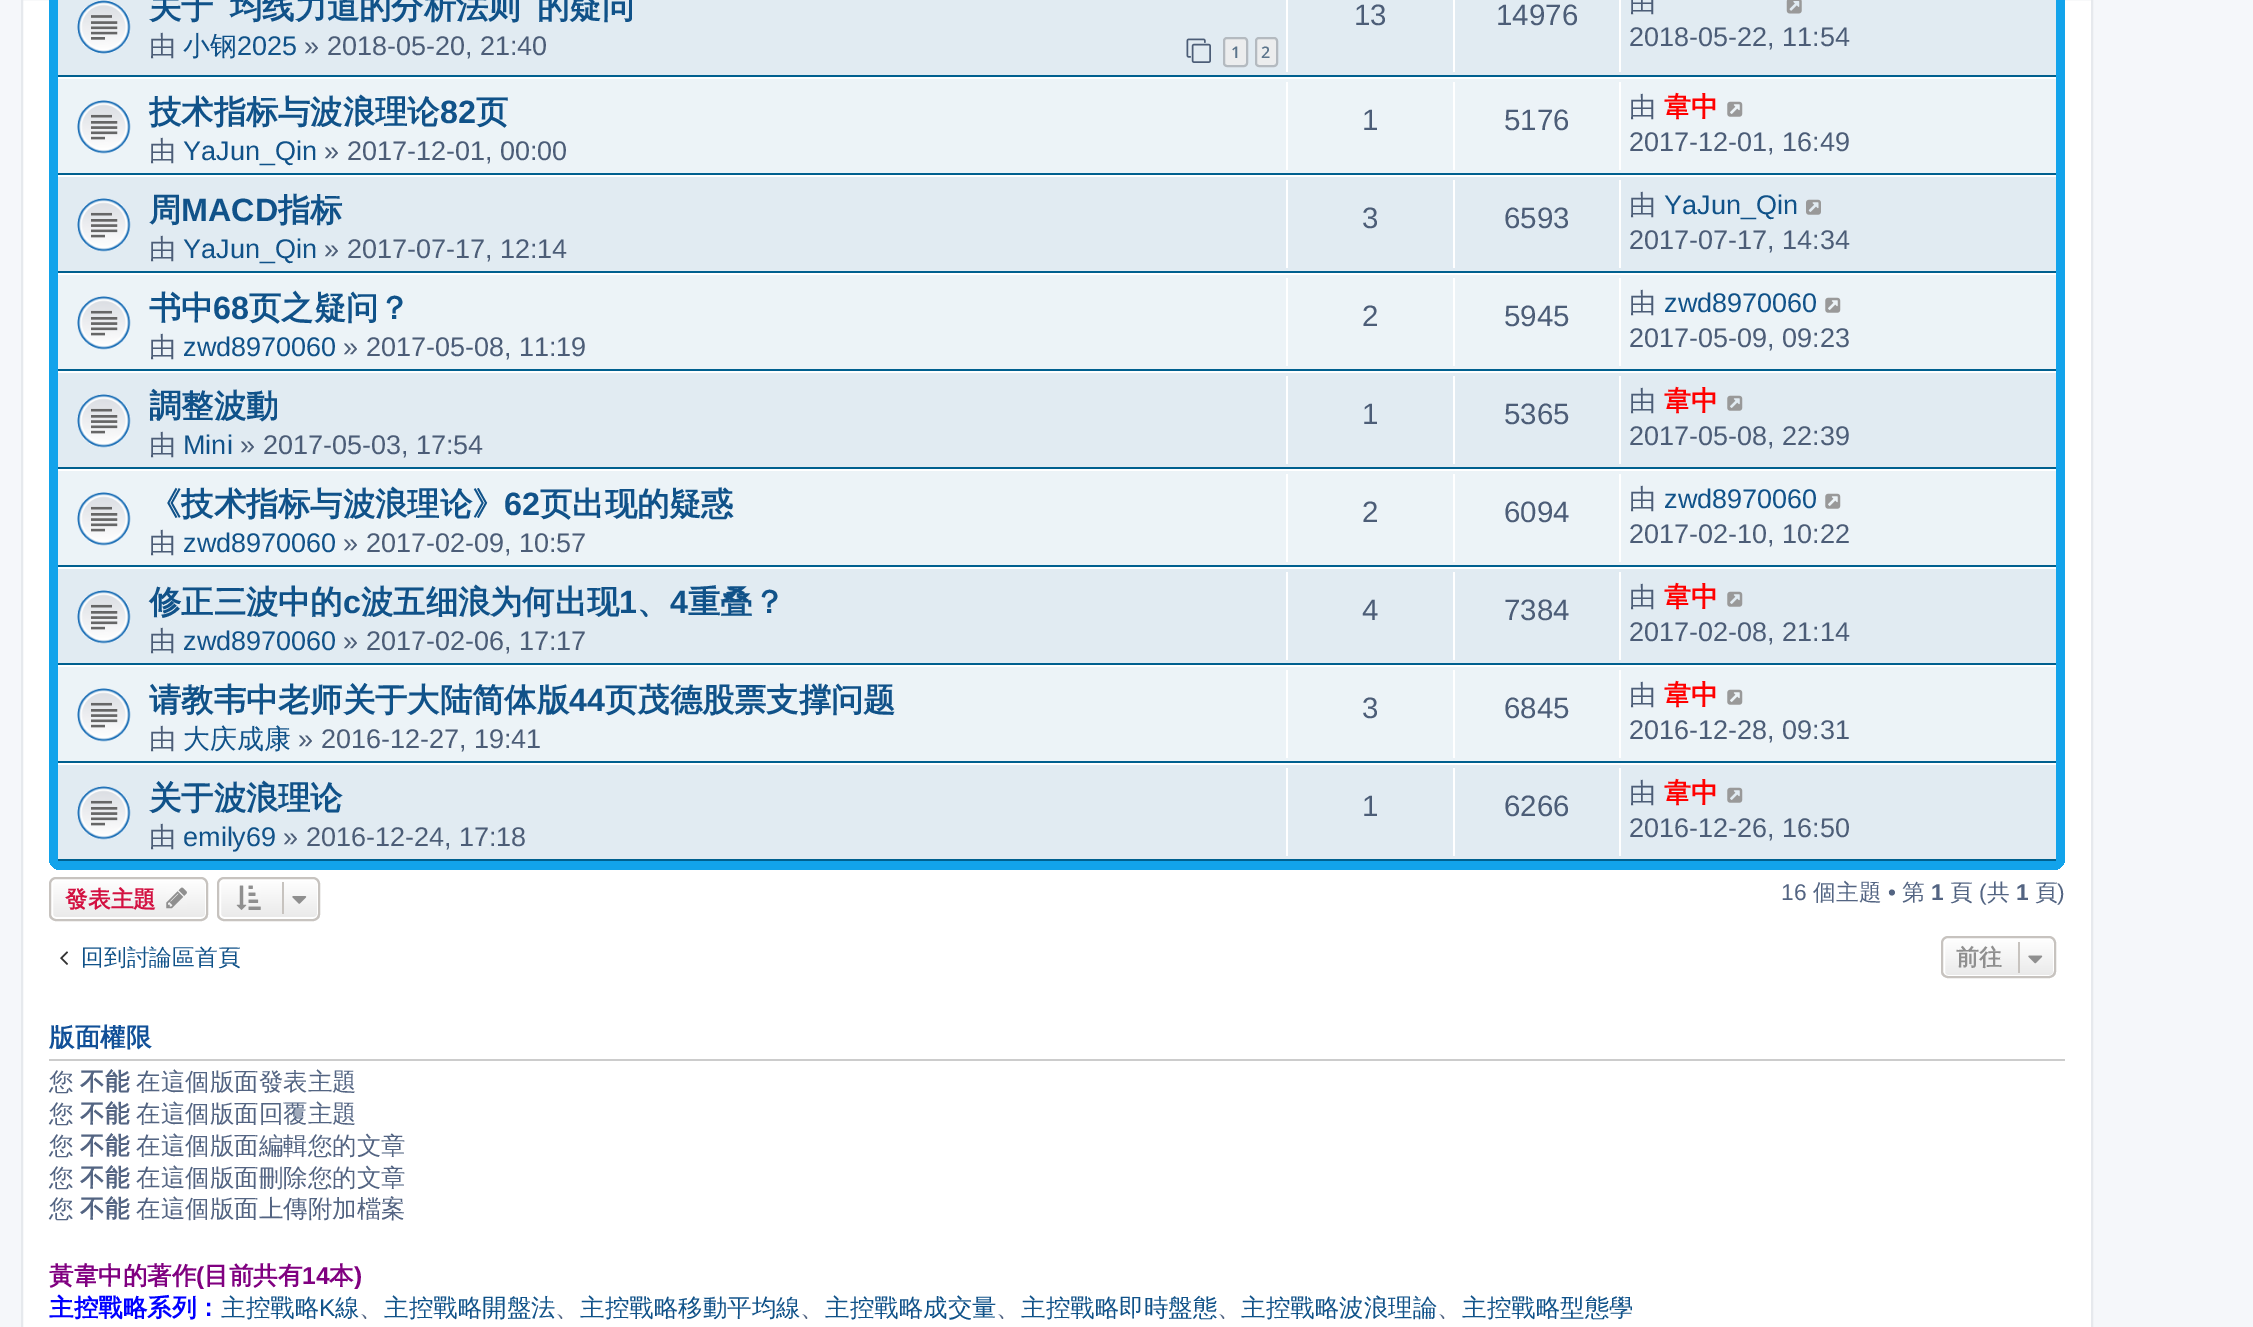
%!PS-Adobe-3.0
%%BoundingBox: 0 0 2253 1327
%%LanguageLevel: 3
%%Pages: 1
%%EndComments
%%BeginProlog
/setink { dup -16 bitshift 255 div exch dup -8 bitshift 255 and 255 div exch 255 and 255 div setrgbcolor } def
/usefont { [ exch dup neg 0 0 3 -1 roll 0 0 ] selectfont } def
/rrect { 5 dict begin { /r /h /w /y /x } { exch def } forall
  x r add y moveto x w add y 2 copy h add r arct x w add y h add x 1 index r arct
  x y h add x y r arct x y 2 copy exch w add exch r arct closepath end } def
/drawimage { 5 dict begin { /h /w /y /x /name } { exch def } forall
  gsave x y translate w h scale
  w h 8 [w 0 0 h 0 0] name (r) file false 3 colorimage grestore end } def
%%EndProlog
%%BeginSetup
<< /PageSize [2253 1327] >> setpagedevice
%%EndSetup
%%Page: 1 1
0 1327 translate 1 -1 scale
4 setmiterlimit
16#F5F7FA setink
0 0 2253 1327 rectfill
16#FFFFFF setink
22 -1 moveto 2092 -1 lineto 2092 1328 lineto 22 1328 lineto closepath gsave fill grestore
16#E6E9ED setink
2 setlinewidth
stroke
gsave 49 -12 2016 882 12 rrect clip newpath
<< /ShadingType 2 /ColorSpace /DeviceRGB /Coords [1057 -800 1057 870] /Extend [true true] /Function << /FunctionType 3 /Domain [0 1] /Functions [<< /FunctionType 2 /Domain [0 1] /C0 [0 0.463 0.694] /C1 [0.071 0.639 0.922] /N 1 >> << /FunctionType 2 /Domain [0 1] /C0 [0.071 0.639 0.922] /C1 [0.071 0.639 0.922] /N 1 >>] /Bounds [0.1] /Encode [0 1 0 1] >> >> shfill grestore
16#E1EBF2 setink
58 0 1998 75 rectfill
16#00608F setink
58 75 1998 2 rectfill
(img1.raw) 77 0 54 54 drawimage
/WenQuanYiZenHei-Bold 32.3 usefont
16#105289 setink
[
    [(关于) 149 18]
    [(均线力道的分析法则) 230 18]
    [(的疑问) 537 18]
] { aload pop moveto show } forall
/WenQuanYiZenHei-Medium 27 usefont
16#4C5D77 setink
149 55 moveto (由) show
16#105289 setink
183 55 moveto (小钢) show
/LiberationSans-Regular 27 usefont
237 55 moveto (2025) show
16#4C5D77 setink
304 55 moveto (» 2018-05-20, 21:40) show
(img2.raw) 1186 38 25 25 drawimage
16#ECEDEE setink
1224 38 23 28 3 rrect gsave fill grestore
16#B4BAC0 setink
stroke
/OpenSans-SemiBold 16 usefont
16#5C758C setink
1231 58 moveto (1) show
16#ECEDEE setink
1256 38 21 28 3 rrect gsave fill grestore
16#B4BAC0 setink
stroke
16#5C758C setink
1261 58 moveto (2) show
16#FFFFFF setink
1286 0 2 72 rectfill
/LiberationSans-Regular 29.5 usefont
16#4C5D77 setink
1354 25 moveto (13) show
16#FFFFFF setink
1453 0 2 72 rectfill
16#4C5D77 setink
1496 25 moveto (14976) show
16#FFFFFF setink
1619 0 2 72 rectfill
/WenQuanYiZenHei-Medium 27 usefont
16#4C5D77 setink
1629 11 moveto (由) show
(img3.raw) 1786 0 16 14 drawimage
/LiberationSans-Regular 27 usefont
1629 46 moveto (2018-05-22, 11:54) show
[
    [58 79 1998 94 16#ECF3F7]
    [58 77 1998 2 16#FFFFFF]
    [58 173 1998 2 16#00608F]
] { aload pop setink rectfill } forall
(img4.raw) 77 100 54 54 drawimage
/WenQuanYiZenHei-Bold 32.3 usefont
16#105289 setink
149 123 moveto (技术指标与波浪理论) show
/LiberationSans-Bold 32.3 usefont
440 123 moveto (82) show
/WenQuanYiZenHei-Bold 32.3 usefont
476 123 moveto (页) show
/WenQuanYiZenHei-Medium 27 usefont
16#4C5D77 setink
149 160 moveto (由) show
/LiberationSans-Regular 27 usefont
16#105289 setink
183 160 moveto (YaJun_Qin) show
16#4C5D77 setink
324 160 moveto (» 2017-12-01, 00:00) show
16#FFFFFF setink
1286 82 2 88 rectfill
/LiberationSans-Regular 29.5 usefont
16#4C5D77 setink
1362 130 moveto (1) show
16#FFFFFF setink
1453 82 2 88 rectfill
16#4C5D77 setink
1504 130 moveto (5176) show
16#FFFFFF setink
1619 82 2 88 rectfill
/WenQuanYiZenHei-Medium 27 usefont
16#4C5D77 setink
1629 116 moveto (由) show
/WenQuanYiZenHei-Bold 27 usefont
16#FF0000 setink
1664 116 moveto (韋中) show
(img5.raw) 1727 101 16 16 drawimage
/LiberationSans-Regular 27 usefont
16#4C5D77 setink
1629 151 moveto (2017-12-01, 16:49) show
[
    [58 177 1998 94 16#E1EBF2]
    [58 175 1998 2 16#FFFFFF]
    [58 271 1998 2 16#00608F]
] { aload pop setink rectfill } forall
(img6.raw) 77 198 54 54 drawimage
/WenQuanYiZenHei-Bold 32.3 usefont
16#105289 setink
149 221 moveto (周) show
/LiberationSans-Bold 32.3 usefont
181 221 moveto (MACD) show
/WenQuanYiZenHei-Bold 32.3 usefont
278 221 moveto (指标) show
/WenQuanYiZenHei-Medium 27 usefont
16#4C5D77 setink
149 258 moveto (由) show
/LiberationSans-Regular 27 usefont
16#105289 setink
183 258 moveto (YaJun_Qin) show
16#4C5D77 setink
324 258 moveto (» 2017-07-17, 12:14) show
16#FFFFFF setink
1286 180 2 88 rectfill
/LiberationSans-Regular 29.5 usefont
16#4C5D77 setink
1362 228 moveto (3) show
16#FFFFFF setink
1453 180 2 88 rectfill
16#4C5D77 setink
1504 228 moveto (6593) show
16#FFFFFF setink
1619 180 2 88 rectfill
/WenQuanYiZenHei-Medium 27 usefont
16#4C5D77 setink
1629 214 moveto (由) show
/LiberationSans-Regular 27 usefont
16#105289 setink
1664 214 moveto (YaJun_Qin) show
(img7.raw) 1806 199 15 16 drawimage
16#4C5D77 setink
1629 249 moveto (2017-07-17, 14:34) show
[
    [58 275 1998 94 16#ECF3F7]
    [58 273 1998 2 16#FFFFFF]
    [58 369 1998 2 16#00608F]
] { aload pop setink rectfill } forall
(img8.raw) 77 296 54 54 drawimage
/WenQuanYiZenHei-Bold 32.3 usefont
16#105289 setink
149 319 moveto (书中) show
/LiberationSans-Bold 32.3 usefont
213 319 moveto (68) show
/WenQuanYiZenHei-Bold 32.3 usefont
249 319 moveto (页之疑问？) show
/WenQuanYiZenHei-Medium 27 usefont
16#4C5D77 setink
149 356 moveto (由) show
/LiberationSans-Regular 27 usefont
16#105289 setink
183 356 moveto (zwd8970060) show
16#4C5D77 setink
343 356 moveto (» 2017-05-08, 11:19) show
16#FFFFFF setink
1286 278 2 88 rectfill
/LiberationSans-Regular 29.5 usefont
16#4C5D77 setink
1362 326 moveto (2) show
16#FFFFFF setink
1453 278 2 88 rectfill
16#4C5D77 setink
1504 326 moveto (5945) show
16#FFFFFF setink
1619 278 2 88 rectfill
/WenQuanYiZenHei-Medium 27 usefont
16#4C5D77 setink
1629 312 moveto (由) show
/LiberationSans-Regular 27 usefont
16#105289 setink
1664 312 moveto (zwd8970060) show
(img9.raw) 1825 297 16 16 drawimage
16#4C5D77 setink
1629 347 moveto (2017-05-09, 09:23) show
[
    [58 373 1998 94 16#E1EBF2]
    [58 371 1998 2 16#FFFFFF]
    [58 467 1998 2 16#00608F]
] { aload pop setink rectfill } forall
(img10.raw) 77 394 54 54 drawimage
/WenQuanYiZenHei-Bold 32.3 usefont
16#105289 setink
149 417 moveto (調整波動) show
/WenQuanYiZenHei-Medium 27 usefont
16#4C5D77 setink
149 454 moveto (由) show
/LiberationSans-Regular 27 usefont
16#105289 setink
183 454 moveto (Mini) show
16#4C5D77 setink
240 454 moveto (» 2017-05-03, 17:54) show
16#FFFFFF setink
1286 376 2 88 rectfill
/LiberationSans-Regular 29.5 usefont
16#4C5D77 setink
1362 424 moveto (1) show
16#FFFFFF setink
1453 376 2 88 rectfill
16#4C5D77 setink
1504 424 moveto (5365) show
16#FFFFFF setink
1619 376 2 88 rectfill
/WenQuanYiZenHei-Medium 27 usefont
16#4C5D77 setink
1629 410 moveto (由) show
/WenQuanYiZenHei-Bold 27 usefont
16#FF0000 setink
1664 410 moveto (韋中) show
(img11.raw) 1727 395 16 16 drawimage
/LiberationSans-Regular 27 usefont
16#4C5D77 setink
1629 445 moveto (2017-05-08, 22:39) show
[
    [58 471 1998 94 16#ECF3F7]
    [58 469 1998 2 16#FFFFFF]
    [58 565 1998 2 16#00608F]
] { aload pop setink rectfill } forall
(img4.raw) 77 492 54 54 drawimage
/WenQuanYiZenHei-Bold 32.3 usefont
16#105289 setink
149 515 moveto (《技术指标与波浪理论》) show
/LiberationSans-Bold 32.3 usefont
504 515 moveto (62) show
/WenQuanYiZenHei-Bold 32.3 usefont
540 515 moveto (页出现的疑惑) show
/WenQuanYiZenHei-Medium 27 usefont
16#4C5D77 setink
149 552 moveto (由) show
/LiberationSans-Regular 27 usefont
16#105289 setink
183 552 moveto (zwd8970060) show
16#4C5D77 setink
343 552 moveto (» 2017-02-09, 10:57) show
16#FFFFFF setink
1286 474 2 88 rectfill
/LiberationSans-Regular 29.5 usefont
16#4C5D77 setink
1362 522 moveto (2) show
16#FFFFFF setink
1453 474 2 88 rectfill
16#4C5D77 setink
1504 522 moveto (6094) show
16#FFFFFF setink
1619 474 2 88 rectfill
/WenQuanYiZenHei-Medium 27 usefont
16#4C5D77 setink
1629 508 moveto (由) show
/LiberationSans-Regular 27 usefont
16#105289 setink
1664 508 moveto (zwd8970060) show
(img9.raw) 1825 493 16 16 drawimage
16#4C5D77 setink
1629 543 moveto (2017-02-10, 10:22) show
[
    [58 569 1998 94 16#E1EBF2]
    [58 567 1998 2 16#FFFFFF]
    [58 663 1998 2 16#00608F]
] { aload pop setink rectfill } forall
(img10.raw) 77 590 54 54 drawimage
/WenQuanYiZenHei-Bold 32.3 usefont
16#105289 setink
149 613 moveto (修正三波中的) show
/LiberationSans-Bold 32.3 usefont
343 613 moveto (c) show
/WenQuanYiZenHei-Bold 32.3 usefont
361 613 moveto (波五细浪为何出现) show
/LiberationSans-Bold 32.3 usefont
619 613 moveto (1) show
/WenQuanYiZenHei-Bold 32.3 usefont
637 613 moveto (、) show
/LiberationSans-Bold 32.3 usefont
670 613 moveto (4) show
/WenQuanYiZenHei-Bold 32.3 usefont
688 613 moveto (重叠？) show
/WenQuanYiZenHei-Medium 27 usefont
16#4C5D77 setink
149 650 moveto (由) show
/LiberationSans-Regular 27 usefont
16#105289 setink
183 650 moveto (zwd8970060) show
16#4C5D77 setink
343 650 moveto (» 2017-02-06, 17:17) show
16#FFFFFF setink
1286 572 2 88 rectfill
/LiberationSans-Regular 29.5 usefont
16#4C5D77 setink
1362 620 moveto (4) show
16#FFFFFF setink
1453 572 2 88 rectfill
16#4C5D77 setink
1504 620 moveto (7384) show
16#FFFFFF setink
1619 572 2 88 rectfill
/WenQuanYiZenHei-Medium 27 usefont
16#4C5D77 setink
1629 606 moveto (由) show
/WenQuanYiZenHei-Bold 27 usefont
16#FF0000 setink
1664 606 moveto (韋中) show
(img11.raw) 1727 591 16 16 drawimage
/LiberationSans-Regular 27 usefont
16#4C5D77 setink
1629 641 moveto (2017-02-08, 21:14) show
[
    [58 667 1998 94 16#ECF3F7]
    [58 665 1998 2 16#FFFFFF]
    [58 761 1998 2 16#00608F]
] { aload pop setink rectfill } forall
(img4.raw) 77 688 54 54 drawimage
/WenQuanYiZenHei-Bold 32.3 usefont
16#105289 setink
149 711 moveto (请教韦中老师关于大陆简体版) show
/LiberationSans-Bold 32.3 usefont
569 711 moveto (44) show
/WenQuanYiZenHei-Bold 32.3 usefont
605 711 moveto (页茂德股票支撑问题) show
/WenQuanYiZenHei-Medium 27 usefont
16#4C5D77 setink
149 748 moveto (由) show
16#105289 setink
183 748 moveto (大庆成康) show
/LiberationSans-Regular 27 usefont
16#4C5D77 setink
298 748 moveto (» 2016-12-27, 19:41) show
16#FFFFFF setink
1286 670 2 88 rectfill
/LiberationSans-Regular 29.5 usefont
16#4C5D77 setink
1362 718 moveto (3) show
16#FFFFFF setink
1453 670 2 88 rectfill
16#4C5D77 setink
1504 718 moveto (6845) show
16#FFFFFF setink
1619 670 2 88 rectfill
/WenQuanYiZenHei-Medium 27 usefont
16#4C5D77 setink
1629 704 moveto (由) show
/WenQuanYiZenHei-Bold 27 usefont
16#FF0000 setink
1664 704 moveto (韋中) show
(img12.raw) 1727 689 16 16 drawimage
/LiberationSans-Regular 27 usefont
16#4C5D77 setink
1629 739 moveto (2016-12-28, 09:31) show
[
    [58 765 1998 94 16#E1EBF2]
    [58 763 1998 2 16#FFFFFF]
    [58 859 1998 2 16#00608F]
] { aload pop setink rectfill } forall
(img10.raw) 77 786 54 54 drawimage
/WenQuanYiZenHei-Bold 32.3 usefont
16#105289 setink
149 809 moveto (关于波浪理论) show
/WenQuanYiZenHei-Medium 27 usefont
16#4C5D77 setink
149 846 moveto (由) show
/LiberationSans-Regular 27 usefont
16#105289 setink
183 846 moveto (emily69) show
16#4C5D77 setink
283 846 moveto (» 2016-12-24, 17:18) show
16#FFFFFF setink
1286 768 2 88 rectfill
/LiberationSans-Regular 29.5 usefont
16#4C5D77 setink
1362 816 moveto (1) show
16#FFFFFF setink
1453 768 2 88 rectfill
16#4C5D77 setink
1504 816 moveto (6266) show
16#FFFFFF setink
1619 768 2 88 rectfill
/WenQuanYiZenHei-Medium 27 usefont
16#4C5D77 setink
1629 802 moveto (由) show
/WenQuanYiZenHei-Bold 27 usefont
16#FF0000 setink
1664 802 moveto (韋中) show
(img11.raw) 1727 787 16 16 drawimage
/LiberationSans-Regular 27 usefont
16#4C5D77 setink
1629 837 moveto (2016-12-26, 16:50) show
gsave
49 877 159 44 7 rrect clip newpath
gsave 49 879 moveto 208 879 lineto 208 919 lineto 49 919 lineto closepath clip newpath
<< /ShadingType 2 /ColorSpace /DeviceRGB /Coords [129 879 129 919] /Extend [true true] /Function << /FunctionType 2 /Domain [0 1] /C0 [1 1 1] /C1 [0.914 0.914 0.914] /N 1 >> >> shfill grestore
grestore
16#FFFFFF setink
52 880 154 38 4 rrect stroke
16#C7C3BF setink
50 878 157 42 6 rrect stroke
/WenQuanYiZenHei-Bold 22.75 usefont
16#D31141 setink
65 907 moveto (發表主題) show
(img13.raw) 166 887 21 22 drawimage
gsave
217 877 103 44 7 rrect clip newpath
gsave 217 879 moveto 320 879 lineto 320 919 lineto 217 919 lineto closepath clip newpath
<< /ShadingType 2 /ColorSpace /DeviceRGB /Coords [269 879 269 919] /Extend [true true] /Function << /FunctionType 2 /Domain [0 1] /C0 [1 1 1] /C1 [0.914 0.914 0.914] /N 1 >> >> shfill grestore
grestore
16#FFFFFF setink
220 880 98 38 4 rrect stroke
16#C7C3BF setink
218 878 101 42 6 rrect stroke
(img14.raw) 236 885 25 25 drawimage
282 882 2 32 rectfill
(img15.raw) 292 896 15 8 drawimage
/LiberationSans-Regular 22.75 usefont
16#536482 setink
1781 900 moveto (16) show
/WenQuanYiZenHei-Medium 22.75 usefont
1813 900 moveto (個主題) show
/LiberationSans-Regular 22.75 usefont
1888 900 moveto (•) show
/WenQuanYiZenHei-Medium 22.75 usefont
1902 900 moveto (第) show
/LiberationSans-Bold 22.75 usefont
1931 900 moveto (1) show
/WenQuanYiZenHei-Medium 22.75 usefont
1950 900 moveto (頁) show
/LiberationSans-Regular 22.75 usefont
1979 900 moveto (\() show
/WenQuanYiZenHei-Medium 22.75 usefont
1987 900 moveto (共) show
/LiberationSans-Bold 22.75 usefont
2016 900 moveto (1) show
/WenQuanYiZenHei-Medium 22.75 usefont
2035 900 moveto (頁) show
/LiberationSans-Regular 22.75 usefont
2057 900 moveto (\)) show
(img16.raw) 60 951 8 14 drawimage
/WenQuanYiZenHei-Medium 22.75 usefont
16#105289 setink
81 965 moveto (回到討論區首頁) show
gsave
1941 936 115 42 7 rrect clip newpath
gsave 1941 938 moveto 2056 938 lineto 2056 977 lineto 1941 977 lineto closepath clip newpath
<< /ShadingType 2 /ColorSpace /DeviceRGB /Coords [1999 938 1999 977] /Extend [true true] /Function << /FunctionType 2 /Domain [0 1] /C0 [1 1 1] /C1 [0.914 0.914 0.914] /N 1 >> >> shfill grestore
grestore
16#FFFFFF setink
1944 939 110 37 4 rrect stroke
16#C7C3BF setink
1942 937 113 40 6 rrect stroke
/WenQuanYiZenHei-Bold 22.75 usefont
16#8F8F8F setink
1956 965 moveto (前往) show
16#C7C3BF setink
2018 942 2 31 rectfill
(img17.raw) 2028 955 15 9 drawimage
16#CCCCCC setink
49 1059 2016 2 rectfill
/WenQuanYiZenHei-Bold 25.5 usefont
16#115098 setink
49 1046 moveto (版面權限) show
/WenQuanYiZenHei-Medium 24.5 usefont
16#536482 setink
49 1090 moveto (您) show
/WenQuanYiZenHei-Bold 24.5 usefont
80 1090 moveto (不能) show
/WenQuanYiZenHei-Medium 24.5 usefont
136 1090 moveto (在這個版面發表主題) show
49 1122 moveto (您) show
/WenQuanYiZenHei-Bold 24.5 usefont
80 1122 moveto (不能) show
/WenQuanYiZenHei-Medium 24.5 usefont
136 1122 moveto (在這個版面回覆主題) show
49 1154 moveto (您) show
/WenQuanYiZenHei-Bold 24.5 usefont
80 1154 moveto (不能) show
/WenQuanYiZenHei-Medium 24.5 usefont
136 1154 moveto (在這個版面編輯您的文章) show
49 1186 moveto (您) show
/WenQuanYiZenHei-Bold 24.5 usefont
80 1186 moveto (不能) show
/WenQuanYiZenHei-Medium 24.5 usefont
136 1186 moveto (在這個版面刪除您的文章) show
49 1217 moveto (您) show
/WenQuanYiZenHei-Bold 24.5 usefont
80 1217 moveto (不能) show
/WenQuanYiZenHei-Medium 24.5 usefont
136 1217 moveto (在這個版面上傳附加檔案) show
/WenQuanYiZenHei-Bold 24.5 usefont
16#800080 setink
49 1284 moveto (黃韋中的著作) show
/LiberationSans-Bold 24.5 usefont
196 1284 moveto (\() show
/WenQuanYiZenHei-Bold 24.5 usefont
204 1284 moveto (目前共有) show
/LiberationSans-Bold 24.5 usefont
302 1284 moveto (14) show
/WenQuanYiZenHei-Bold 24.5 usefont
329 1284 moveto (本) show
/LiberationSans-Bold 24.5 usefont
354 1284 moveto (\)) show
/WenQuanYiZenHei-Bold 24.5 usefont
16#0000FF setink
49 1316 moveto (主控戰略系列：) show
/WenQuanYiZenHei-Medium 24.5 usefont
16#105289 setink
221 1316 moveto (主控戰略) show
/LiberationSans-Regular 24.5 usefont
319 1316 moveto (K) show
/WenQuanYiZenHei-Medium 24.5 usefont
335 1316 moveto (線) show
16#536482 setink
359 1316 moveto (、) show
16#105289 setink
384 1316 moveto (主控戰略開盤法) show
16#536482 setink
555 1316 moveto (、) show
16#105289 setink
580 1316 moveto (主控戰略移動平均線) show
16#536482 setink
800 1316 moveto (、) show
16#105289 setink
825 1316 moveto (主控戰略成交量) show
16#536482 setink
996 1316 moveto (、) show
16#105289 setink
1021 1316 moveto (主控戰略即時盤態) show
16#536482 setink
1217 1316 moveto (、) show
16#105289 setink
1241 1316 moveto (主控戰略波浪理論) show
16#536482 setink
1437 1316 moveto (、) show
16#105289 setink
1462 1316 moveto (主控戰略型態學) show
showpage
%%EOF
